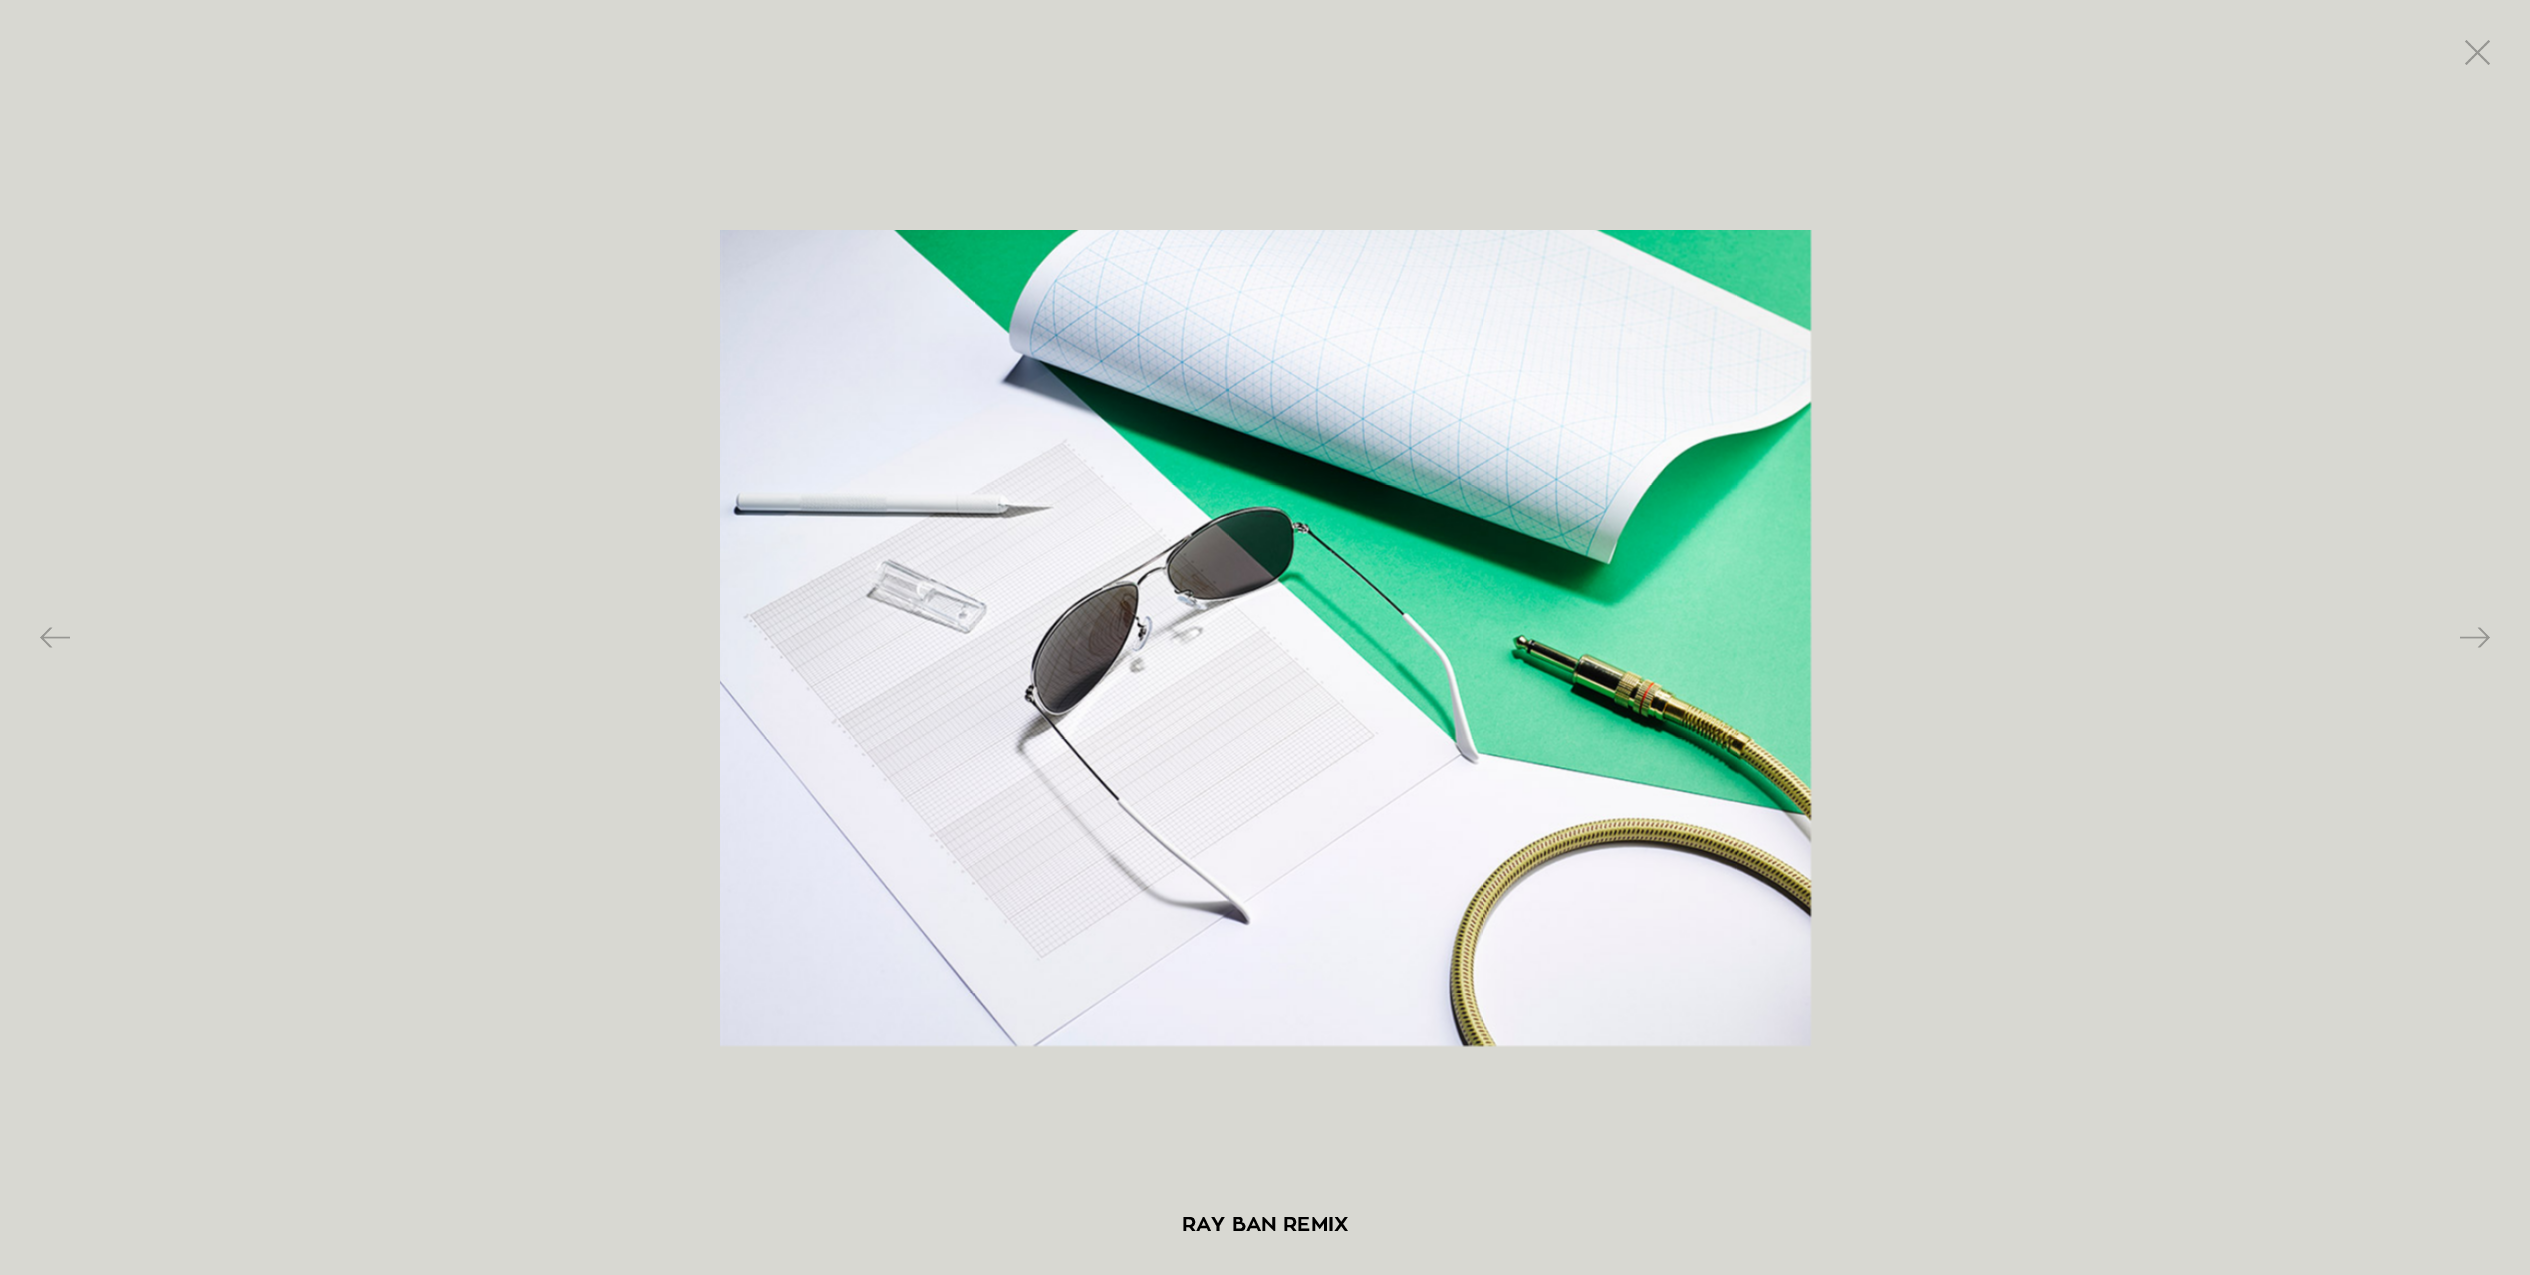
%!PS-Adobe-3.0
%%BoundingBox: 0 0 2530 1275
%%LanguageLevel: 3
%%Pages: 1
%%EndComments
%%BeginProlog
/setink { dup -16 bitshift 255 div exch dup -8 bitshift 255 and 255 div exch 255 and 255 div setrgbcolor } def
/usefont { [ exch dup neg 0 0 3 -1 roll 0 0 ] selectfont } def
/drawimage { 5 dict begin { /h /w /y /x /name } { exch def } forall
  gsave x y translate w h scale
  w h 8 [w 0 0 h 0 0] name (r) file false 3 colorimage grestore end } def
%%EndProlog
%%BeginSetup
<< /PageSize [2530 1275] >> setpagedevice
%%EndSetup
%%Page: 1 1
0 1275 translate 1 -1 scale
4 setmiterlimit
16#D8D8D2 setink
0 0 2530 1275 rectfill
(img1.raw) 2465 40 25 25 drawimage
(img2.raw) 720 230 1092 817 drawimage
(img3.raw) 40 627 30 21 drawimage
(img4.raw) 2460 627 30 21 drawimage
/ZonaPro-Bold 20 usefont
16#000000 setink
1182 1231 moveto (RAY BAN REMIX) show
showpage
%%EOF
